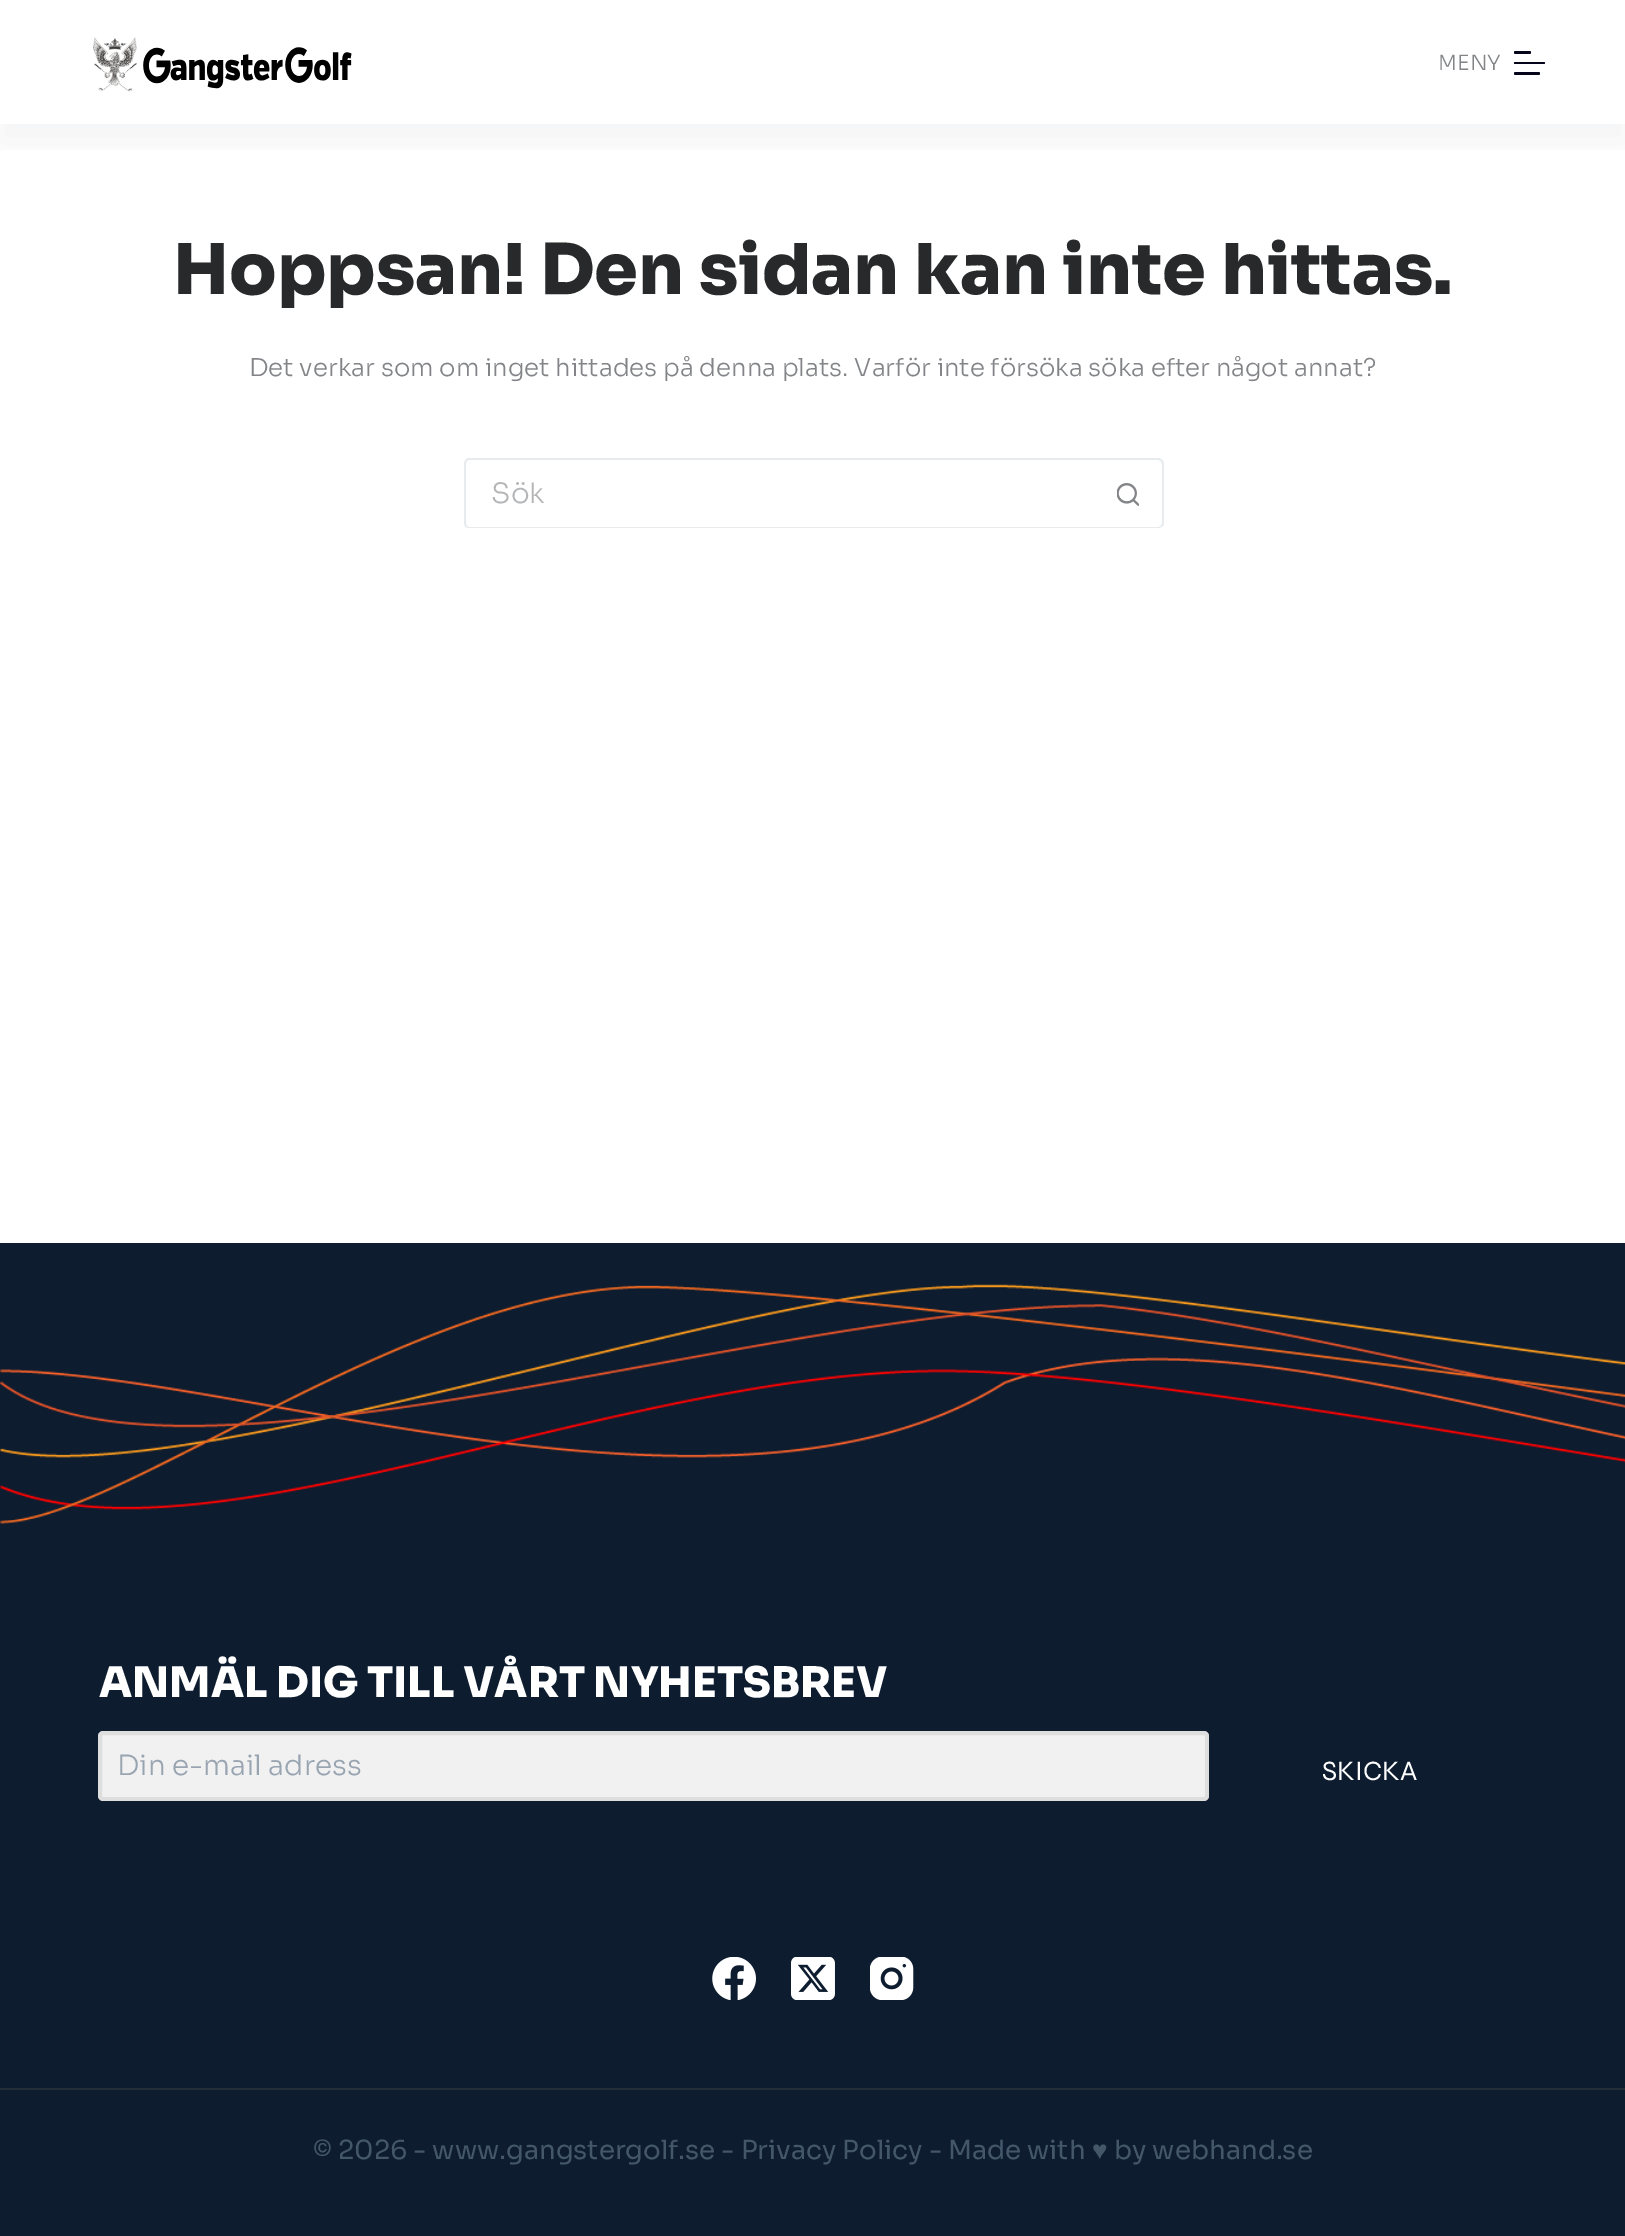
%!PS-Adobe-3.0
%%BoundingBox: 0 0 1625 2236
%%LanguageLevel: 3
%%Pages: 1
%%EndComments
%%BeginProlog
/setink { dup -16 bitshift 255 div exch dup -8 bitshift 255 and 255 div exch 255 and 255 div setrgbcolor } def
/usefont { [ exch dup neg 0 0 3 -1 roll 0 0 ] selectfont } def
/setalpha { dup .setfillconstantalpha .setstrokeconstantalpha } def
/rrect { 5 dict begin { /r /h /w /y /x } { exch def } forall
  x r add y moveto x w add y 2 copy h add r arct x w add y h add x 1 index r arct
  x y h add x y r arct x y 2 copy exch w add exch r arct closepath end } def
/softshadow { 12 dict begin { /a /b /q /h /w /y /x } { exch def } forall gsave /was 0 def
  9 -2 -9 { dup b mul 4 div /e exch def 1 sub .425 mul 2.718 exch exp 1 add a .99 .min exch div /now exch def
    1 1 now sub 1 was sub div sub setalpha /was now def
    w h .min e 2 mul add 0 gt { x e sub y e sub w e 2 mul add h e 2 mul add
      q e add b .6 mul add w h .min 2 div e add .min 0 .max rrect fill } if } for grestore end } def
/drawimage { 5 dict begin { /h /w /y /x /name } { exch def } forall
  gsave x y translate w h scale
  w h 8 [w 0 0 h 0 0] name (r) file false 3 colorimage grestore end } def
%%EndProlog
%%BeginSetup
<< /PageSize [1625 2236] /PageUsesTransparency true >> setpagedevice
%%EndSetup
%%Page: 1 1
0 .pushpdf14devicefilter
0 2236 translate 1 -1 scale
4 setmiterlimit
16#FFFFFF setink
0 0 1625 2236 rectfill
gsave
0 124 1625 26 rectclip
16#2B3D50 setink
0 19 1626 123 0 17.5 0.06 softshadow
grestore
(img1.raw) 93 37 259 55 drawimage
/Sora-Light 21 usefont
16#828487 setink
1438 70 moveto (MENY) show
16#04051B setink
1514 51 17 3 1.5 rrect fill
1514 62 31 2 1 rrect fill
1514 72 26 3 1.5 rrect fill
/Sora-ExtraBold 70 usefont
16#28292A setink
173 294 moveto (Hoppsan! Den sidan kan inte hittas.) show
/Sora-Light 24.5 usefont
16#828487 setink
249 376 moveto (Det verkar som om inget hittades på denna plats. Varför inte försöka söka efter något annat?) show
16#E8EBED setink
469 458 moveto 1094 458 lineto 1094 528 lineto 469 528 lineto 466 528 464 526 464 523 curveto 464 464 lineto 464 461 466 458 469 458 curveto closepath 469 460 moveto 1094 460 lineto 1094 527 lineto 469 527 lineto 467 527 466 525 466 523 curveto 466 464 lineto 466 462 467 460 469 460 curveto closepath eofill
/Sora-Light 28 usefont
16#B4B5B7 setink
491 503 moveto (Sök) show
16#E8EBED setink
1094 458 moveto 1158 458 lineto 1161 458 1164 461 1164 464 curveto 1164 523 lineto 1164 526 1161 528 1158 528 curveto 1094 528 lineto closepath 1094 460 moveto 1158 460 lineto 1160 460 1162 462 1162 464 curveto 1162 523 lineto 1162 525 1160 527 1158 527 curveto 1094 527 lineto closepath eofill
(img2.raw) 1117 483 22 23 drawimage
16#0D1C2F setink
0 1243 1625 845 rectfill
(img3.raw) 0 1284 1625 240 drawimage
/Sora-ExtraBold 42 usefont
16#FFFFFF setink
99 1697 moveto (ANMÄL DIG TILL VÅRT NYHETSBREV) show
16#F1F1F1 setink
98 1731 1111 70 5 rrect fill
0.1 setalpha
16#333333 setink
4 setlinewidth
100 1733 1107 66 3 rrect stroke
/Sora-Light 28 usefont
1 setalpha
16#99A4B1 setink
117 1775 moveto (Din e-mail adress) show
/Syne-Regular 28 usefont
16#FFFFFF setink
1322 1780 moveto (SKICKA) show
(img4.raw) 712 1957 44 43 drawimage
(img5.raw) 791 1957 44 43 drawimage
(img6.raw) 870 1957 44 43 drawimage
16#0D1C2F setink
0 2090 1625 146 rectfill
16#222D38 setink
0 2088 1625 2 rectfill
/Sora-Regular 26.25 usefont
16#435769 setink
313 2159 moveto (© 2026 - www.gangstergolf.se - Privacy Policy - Made with) show
/LiberationSans-Regular 26.25 usefont
1092 2159 moveto (♥) show
/Sora-Regular 26.25 usefont
1114 2159 moveto (by webhand.se) show
.poppdf14devicefilter showpage
%%EOF
